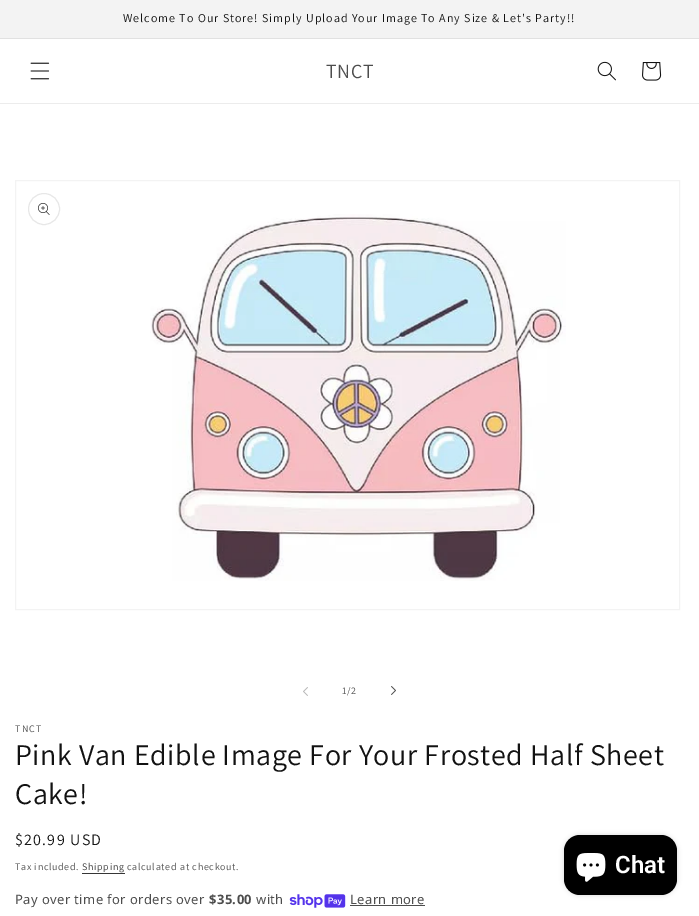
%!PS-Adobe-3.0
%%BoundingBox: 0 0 699 916
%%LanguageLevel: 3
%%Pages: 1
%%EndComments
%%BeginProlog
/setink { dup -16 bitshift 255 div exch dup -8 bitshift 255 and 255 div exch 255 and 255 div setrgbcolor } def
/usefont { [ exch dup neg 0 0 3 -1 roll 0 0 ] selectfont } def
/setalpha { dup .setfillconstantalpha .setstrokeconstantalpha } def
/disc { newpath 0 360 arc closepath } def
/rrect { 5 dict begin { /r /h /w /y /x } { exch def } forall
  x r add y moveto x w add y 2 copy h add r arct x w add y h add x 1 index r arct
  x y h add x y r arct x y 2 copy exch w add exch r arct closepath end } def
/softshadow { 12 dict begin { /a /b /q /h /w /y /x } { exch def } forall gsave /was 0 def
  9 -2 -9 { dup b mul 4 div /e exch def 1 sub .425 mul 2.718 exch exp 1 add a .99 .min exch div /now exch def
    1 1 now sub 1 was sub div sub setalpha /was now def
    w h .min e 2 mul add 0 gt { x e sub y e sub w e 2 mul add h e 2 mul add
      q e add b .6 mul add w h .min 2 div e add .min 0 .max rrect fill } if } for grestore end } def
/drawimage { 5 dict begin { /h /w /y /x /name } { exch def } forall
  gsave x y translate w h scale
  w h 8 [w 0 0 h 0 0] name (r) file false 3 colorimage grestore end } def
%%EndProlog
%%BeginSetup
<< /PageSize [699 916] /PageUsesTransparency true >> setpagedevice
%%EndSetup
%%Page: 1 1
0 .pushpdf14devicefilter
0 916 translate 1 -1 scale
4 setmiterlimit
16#FFFFFF setink
0 0 699 916 rectfill
16#F3F3F3 setink
0 0 699 38 rectfill
16#E1E1E1 setink
0 38 699 1 rectfill
/Assistant-Regular 12 usefont
16#121212 setink
123 22 moveto 1 0 (Welcome To Our Store! Simply Upload Your Image To Any Size & Let's Party!!) ashow
16#ECECEC setink
0 103 699 1 rectfill
(img1.raw) 30 62 20 18 drawimage
/Assistant-Regular 20 usefont
16#4D4D4D setink
326 78 moveto 0.6 0 (TNCT) ashow
(img2.raw) 597 61 19 20 drawimage
(img3.raw) 642 62 20 19 drawimage
16#F3F3F3 setink
15.5 180.5 664 429 rectstroke
16#E7E7E7 setink
44 209 15.5 disc stroke
(img4.raw) 38 203 12 12 drawimage
(img5.raw) 150 214 416 367 drawimage
(img6.raw) 303 687 5 9 drawimage
/Assistant-Regular 10 usefont
16#4D4D4D setink
342 694 moveto 0.7 0 (1/2) ashow
(img7.raw) 391 686 5 9 drawimage
15 732 moveto 1.25 0 (TNCT) ashow
/Assistant-Regular 30 usefont
16#121212 setink
15 765 moveto 0.6 0 (Pink Van Edible Image For Your Frosted Half Sheet) ashow
15 804 moveto 0.6 0 (Cake!) ashow
/Assistant-Regular 16 usefont
15 845 moveto 1.25 0 ($20.99 USD) ashow
/Assistant-Regular 10 usefont
16#4D4D4D setink
15 870 moveto 0.7 0 (Tax included.) ashow
16#363636 setink
82 870 moveto 0.7 0 (Shipping) ashow
82 873 43 1 rectfill
16#4D4D4D setink
127 870 moveto 0.7 0 (calculated at checkout.) ashow
/NotoSans-Regular 13 usefont
15 904 moveto 0.4 0 (Pay over time for orders over) ashow
/NotoSans-Bold 13 usefont
209 904 moveto 0.4 0 ($35.00) ashow
/NotoSans-Regular 13 usefont
256 904 moveto 0.4 0 (with) ashow
(img8.raw) 289 894 57 14 drawimage
350 904 moveto 0.4 0 (Learn more) ashow
350 905 75 1 rectfill
16#000000 setink
564 835 113 60 16 2.5 0.15 softshadow
564 835 113 60 16 rrect fill
(img9.raw) 576 853 30 29 drawimage
/Roboto-SemiBold 24 usefont
16#FFFFFF setink
615 873 moveto (Chat) show
.poppdf14devicefilter showpage
%%EOF
